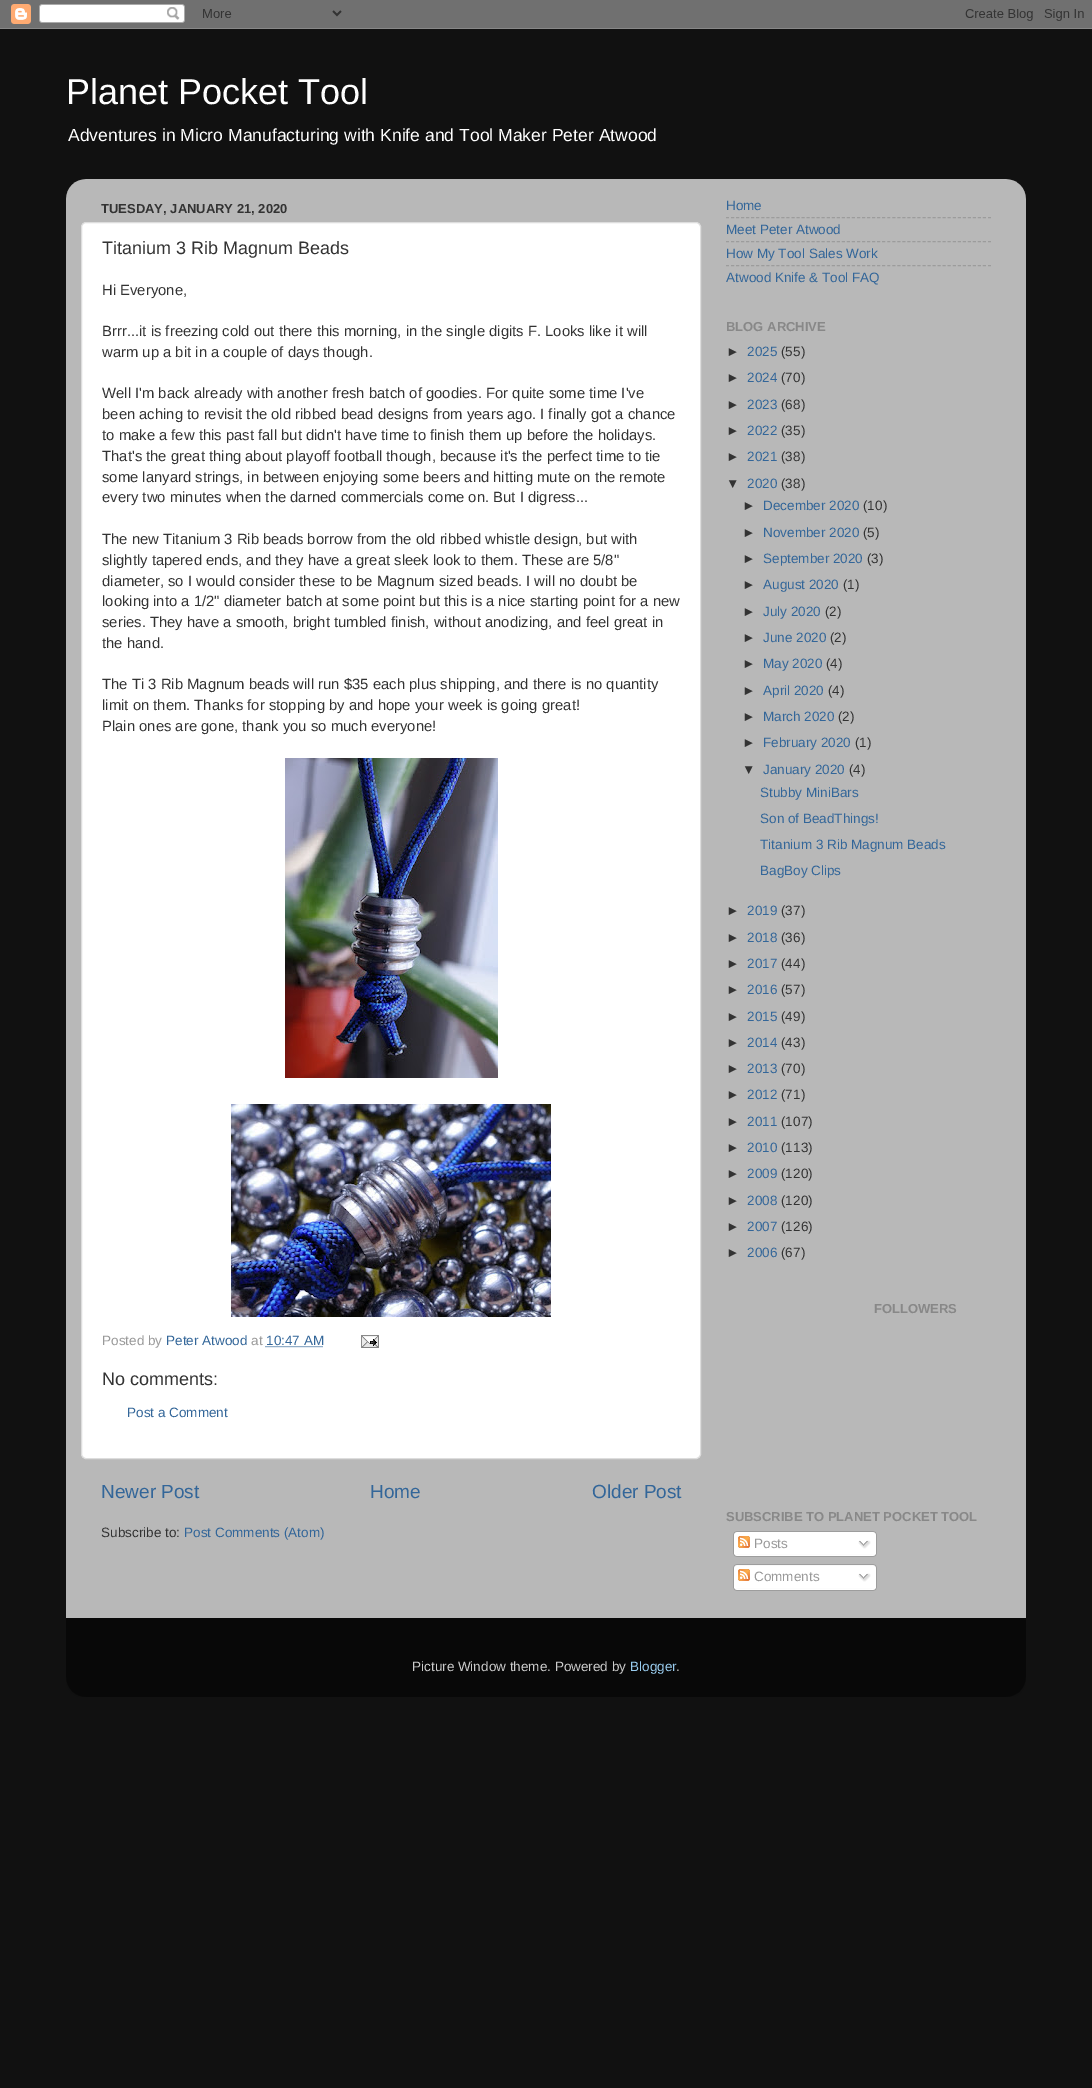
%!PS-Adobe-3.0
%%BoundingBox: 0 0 1092 2088
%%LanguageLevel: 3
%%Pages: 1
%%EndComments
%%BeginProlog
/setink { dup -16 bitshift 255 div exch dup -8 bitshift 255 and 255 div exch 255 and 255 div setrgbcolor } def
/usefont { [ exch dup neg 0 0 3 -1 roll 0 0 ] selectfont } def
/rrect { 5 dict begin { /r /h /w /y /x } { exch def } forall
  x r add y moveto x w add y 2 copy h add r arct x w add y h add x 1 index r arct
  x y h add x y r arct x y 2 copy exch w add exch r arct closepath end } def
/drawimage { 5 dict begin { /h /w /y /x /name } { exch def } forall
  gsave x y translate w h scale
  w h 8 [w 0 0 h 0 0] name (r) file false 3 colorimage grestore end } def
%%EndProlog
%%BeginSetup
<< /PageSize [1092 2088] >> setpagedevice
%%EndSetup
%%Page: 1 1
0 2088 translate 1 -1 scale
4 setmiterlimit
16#111111 setink
0 0 1092 2088 rectfill
(img1.raw) 0 0 1092 29 drawimage
/LiberationSans-Regular 36 usefont
16#FFFFFF setink
66 104 moveto (Planet Pocket Tool) show
/LiberationSans-Regular 17.55 usefont
68 141 moveto (Adventures in Micro Manufacturing with Knife and Tool Maker Peter Atwood) show
(img2.raw) 66 179 960 1439 drawimage
/LiberationSans-Bold 13 usefont
16#333333 setink
101 213 moveto (TUESDAY, JANUARY 21, 2020) show
16#FFFFFF setink
81.5 222.5 619 1236 4.5 rrect gsave fill grestore
16#DDDDDD setink
stroke
/LiberationSans-Regular 18 usefont
16#333333 setink
102 254 moveto (Titanium 3 Rib Magnum Beads) show
/LiberationSans-Regular 14.85 usefont
[
    [(Hi Everyone,) 102 295]
    [(Brrr...it is freezing cold out there this morning, in the single digits F. Looks like it will) 102 336]
    [(warm up a bit in a couple of days though.) 102 357]
    [(Well I'm back already with another fresh batch of goodies. For quite some time I've) 102 398]
    [(been aching to revisit the old ribbed bead designs from years ago. I finally got a chance) 102 419]
    [(to make a few this past fall but didn't have time to finish them up before the holidays.) 102 440]
    [(That's the great thing about playoff football though, because it's the perfect time to tie) 102 461]
    [(some lanyard strings, in between enjoying some beers and hitting mute on the remote) 102 482]
    [(every two minutes when the darned commercials come on. But I digress...) 102 502]
    [(The new Titanium 3 Rib beads borrow from the old ribbed whistle design, but with) 102 544]
    [(slightly tapered ends, and they have a great sleek look to them. These are 5/8") 102 565]
    [(diameter, so I would consider these to be Magnum sized beads. I will no doubt be) 102 586]
    [(looking into a 1/2" diameter batch at some point but this is a nice starting point for a new) 102 606]
    [(series. They have a smooth, bright tumbled finish, without anodizing, and feel great in) 102 627]
    [(the hand.) 102 648]
    [(The Ti 3 Rib Magnum beads will run $35 each plus shipping, and there is no quantity) 102 689]
    [(limit on them. Thanks for stopping by and hope your week is going great!) 102 710]
    [(Plain ones are gone, thank you so much everyone!) 102 731]
] { aload pop moveto show } forall
(img3.raw) 285 758 213 320 drawimage
(img4.raw) 231 1104 320 213 drawimage
/LiberationSans-Regular 13.5 usefont
16#999999 setink
102 1345 moveto (Posted by) show
16#336699 setink
166 1345 moveto (Peter Atwood) show
16#999999 setink
251 1345 moveto (at) show
16#336699 setink
266 1345 moveto (10:47 AM) show
[1 1] 0 setdash
265.5 1346.5 moveto 323.5 1346.5 lineto stroke
(img5.raw) 361 1335 18 13 drawimage
/LiberationSans-Regular 18 usefont
16#333333 setink
102 1385 moveto (No comments:) show
/LiberationSans-Regular 13.5 usefont
16#336699 setink
127 1417 moveto (Post a Comment) show
/LiberationSans-Regular 19 usefont
[
    [(Newer Post) 101 1498]
    [(Home) 370 1498]
    [(Older Post) 592 1498]
] { aload pop moveto show } forall
/LiberationSans-Regular 13.5 usefont
16#333333 setink
101 1537 moveto (Subscribe to:) show
16#336699 setink
184 1537 moveto (Post Comments \(Atom\)) show
726 210 moveto (Home) show
16#9C9C9C setink
[3 2.04] 0 setdash
726 217.5 moveto 991 217.5 lineto stroke
16#336699 setink
726 234 moveto (Meet Peter Atwood) show
16#9C9C9C setink
726 241.5 moveto 991 241.5 lineto stroke
16#336699 setink
726 258 moveto (How My Tool Sales Work) show
16#9C9C9C setink
726 265.5 moveto 991 265.5 lineto stroke
16#336699 setink
726 282 moveto (Atwood Knife & Tool FAQ) show
/LiberationSans-Bold 13 usefont
16#888888 setink
726 331 moveto (BLOG ARCHIVE) show
/LiberationSans-Regular 13.5 usefont
16#333333 setink
726 356 moveto (►) show
16#336699 setink
747 356 moveto (2025) show
16#333333 setink
781 356 moveto (\(55\)) show
726 382 moveto (►) show
16#336699 setink
747 382 moveto (2024) show
16#333333 setink
781 382 moveto (\(70\)) show
726 409 moveto (►) show
16#336699 setink
747 409 moveto (2023) show
16#333333 setink
781 409 moveto (\(68\)) show
726 435 moveto (►) show
16#336699 setink
747 435 moveto (2022) show
16#333333 setink
781 435 moveto (\(35\)) show
726 461 moveto (►) show
16#336699 setink
747 461 moveto (2021) show
16#333333 setink
781 461 moveto (\(38\)) show
726 488 moveto (▼) show
16#336699 setink
747 488 moveto (2020) show
16#333333 setink
781 488 moveto (\(38\)) show
742 510 moveto (►) show
16#336699 setink
763 510 moveto (December 2020) show
16#333333 setink
863 510 moveto (\(10\)) show
742 537 moveto (►) show
16#336699 setink
763 537 moveto (November 2020) show
16#333333 setink
863 537 moveto (\(5\)) show
742 563 moveto (►) show
16#336699 setink
763 563 moveto (September 2020) show
16#333333 setink
867 563 moveto (\(3\)) show
742 589 moveto (►) show
16#336699 setink
763 589 moveto (August 2020) show
16#333333 setink
843 589 moveto (\(1\)) show
742 616 moveto (►) show
16#336699 setink
763 616 moveto (July 2020) show
16#333333 setink
825 616 moveto (\(2\)) show
742 642 moveto (►) show
16#336699 setink
763 642 moveto (June 2020) show
16#333333 setink
830 642 moveto (\(2\)) show
742 668 moveto (►) show
16#336699 setink
763 668 moveto (May 2020) show
16#333333 setink
826 668 moveto (\(4\)) show
742 695 moveto (►) show
16#336699 setink
763 695 moveto (April 2020) show
16#333333 setink
828 695 moveto (\(4\)) show
742 721 moveto (►) show
16#336699 setink
763 721 moveto (March 2020) show
16#333333 setink
838 721 moveto (\(2\)) show
742 747 moveto (►) show
16#336699 setink
763 747 moveto (February 2020) show
16#333333 setink
855 747 moveto (\(1\)) show
742 774 moveto (▼) show
16#336699 setink
763 774 moveto (January 2020) show
16#333333 setink
849 774 moveto (\(4\)) show
16#336699 setink
[
    [(Stubby MiniBars) 760 797]
    [(Son of BeadThings!) 760 823]
    [(Titanium 3 Rib Magnum Beads) 760 849]
    [(BagBoy Clips) 760 875]
] { aload pop moveto show } forall
16#333333 setink
726 915 moveto (►) show
16#336699 setink
747 915 moveto (2019) show
16#333333 setink
781 915 moveto (\(37\)) show
726 942 moveto (►) show
16#336699 setink
747 942 moveto (2018) show
16#333333 setink
781 942 moveto (\(36\)) show
726 968 moveto (►) show
16#336699 setink
747 968 moveto (2017) show
16#333333 setink
781 968 moveto (\(44\)) show
726 994 moveto (►) show
16#336699 setink
747 994 moveto (2016) show
16#333333 setink
781 994 moveto (\(57\)) show
726 1021 moveto (►) show
16#336699 setink
747 1021 moveto (2015) show
16#333333 setink
781 1021 moveto (\(49\)) show
726 1047 moveto (►) show
16#336699 setink
747 1047 moveto (2014) show
16#333333 setink
781 1047 moveto (\(43\)) show
726 1073 moveto (►) show
16#336699 setink
747 1073 moveto (2013) show
16#333333 setink
781 1073 moveto (\(70\)) show
726 1099 moveto (►) show
16#336699 setink
747 1099 moveto (2012) show
16#333333 setink
781 1099 moveto (\(71\)) show
726 1126 moveto (►) show
16#336699 setink
747 1126 moveto (2011) show
16#333333 setink
781 1126 moveto (\(107\)) show
726 1152 moveto (►) show
16#336699 setink
747 1152 moveto (2010) show
16#333333 setink
781 1152 moveto (\(113\)) show
726 1178 moveto (►) show
16#336699 setink
747 1178 moveto (2009) show
16#333333 setink
781 1178 moveto (\(120\)) show
726 1205 moveto (►) show
16#336699 setink
747 1205 moveto (2008) show
16#333333 setink
781 1205 moveto (\(120\)) show
726 1231 moveto (►) show
16#336699 setink
747 1231 moveto (2007) show
16#333333 setink
781 1231 moveto (\(126\)) show
726 1257 moveto (►) show
16#336699 setink
747 1257 moveto (2006) show
16#333333 setink
781 1257 moveto (\(67\)) show
/LiberationSans-Bold 13 usefont
16#888888 setink
874 1313 moveto (FOLLOWERS) show
726 1521 moveto (SUBSCRIBE TO PLANET POCKET TOOL) show
(img6.raw) 733 1531 144 23 drawimage
(img7.raw) 738 1536 12 12 drawimage
/LiberationSans-Regular 13.5 usefont
16#999999 setink
754 1548 moveto (Posts) show
(img8.raw) 858 1540 13 9 drawimage
(img9.raw) 733 1554 144 3 drawimage
(img10.raw) 733 1564 144 24 drawimage
(img7.raw) 738 1569 12 12 drawimage
754 1581 moveto (Comments) show
(img8.raw) 858 1573 13 9 drawimage
(img9.raw) 733 1588 144 3 drawimage
(img11.raw) 66 1618 960 79 drawimage
16#CCCCCC setink
412 1671 moveto (Picture Window theme. Powered by) show
16#99CCEE setink
630 1671 moveto (Blogger) show
16#CCCCCC setink
676 1671 moveto (.) show
showpage
%%EOF
